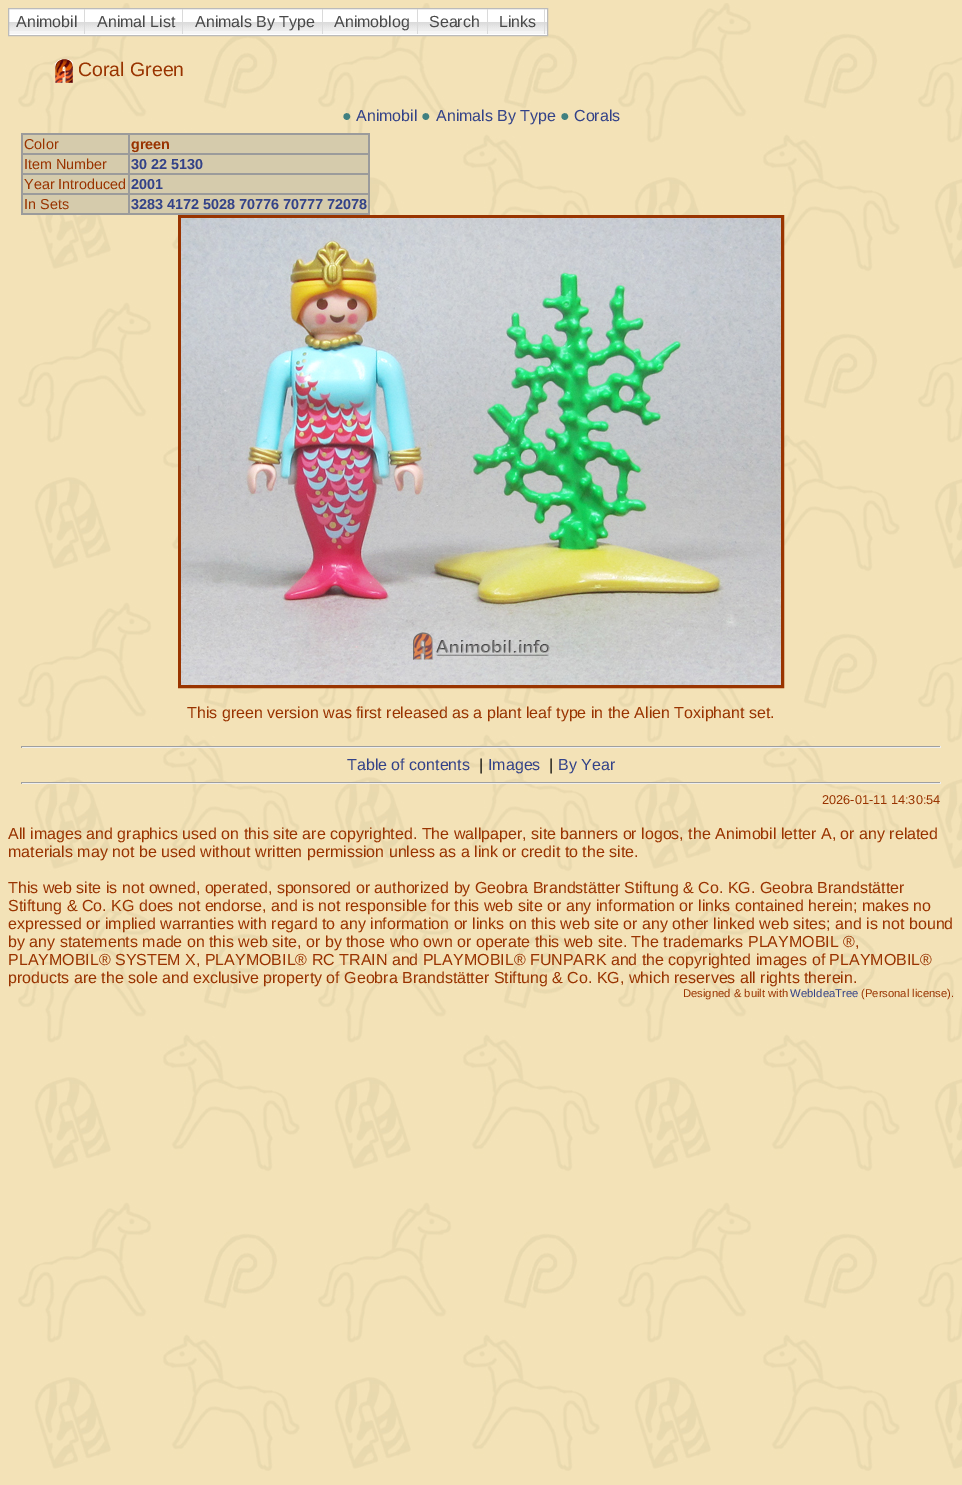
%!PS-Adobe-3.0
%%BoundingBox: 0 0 962 1485
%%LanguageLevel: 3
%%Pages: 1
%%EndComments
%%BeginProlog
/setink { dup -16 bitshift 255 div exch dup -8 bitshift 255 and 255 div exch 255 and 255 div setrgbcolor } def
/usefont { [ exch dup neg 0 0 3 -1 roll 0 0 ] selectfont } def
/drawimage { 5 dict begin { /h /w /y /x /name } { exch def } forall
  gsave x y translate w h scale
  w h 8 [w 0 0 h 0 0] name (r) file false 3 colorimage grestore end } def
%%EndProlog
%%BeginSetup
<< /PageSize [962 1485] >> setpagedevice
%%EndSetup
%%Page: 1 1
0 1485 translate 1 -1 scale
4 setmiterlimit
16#F3E2B7 setink
0 0 962 1485 rectfill
(img1.raw) 18 3 944 1468 drawimage
(img2.raw) 9 9 538 26 drawimage
16#BBBBBB setink
8.5 8.5 539 27 rectstroke
/LiberationSans-Regular 16 usefont
16#494949 setink
16 27 moveto (Animobil) show
16#DADADA setink
84 9 1 25 rectfill
16#494949 setink
97 27 moveto (Animal List) show
16#DADADA setink
182 9 1 25 rectfill
16#494949 setink
195 27 moveto (Animals By Type) show
16#DADADA setink
322 9 1 25 rectfill
16#494949 setink
334 27 moveto (Animoblog) show
16#DADADA setink
417 9 1 25 rectfill
16#494949 setink
429 27 moveto (Search) show
16#DADADA setink
487 9 1 25 rectfill
16#494949 setink
499 27 moveto (Links) show
16#DADADA setink
544 9 1 25 rectfill
(img3.raw) 55 59 18 24 drawimage
/LiberationSans-Regular 19.5 usefont
16#993300 setink
78 76 moveto (Coral Green) show
/LiberationSans-Regular 16 usefont
16#408080 setink
342 121 moveto (●) show
16#334288 setink
356 121 moveto (Animobil) show
16#408080 setink
421 121 moveto (●) show
16#334288 setink
436 121 moveto (Animals By Type) show
16#408080 setink
560 121 moveto (●) show
16#334288 setink
574 121 moveto (Corals) show
16#9B9B9B setink
21 133 349 82 rectfill
16#D5CBAC setink
23 135 105 18 rectfill
/LiberationSans-Regular 14.4 usefont
16#993300 setink
24 149 moveto (Color) show
16#D5CBAC setink
130 135 238 18 rectfill
/LiberationSans-Bold 14.4 usefont
16#993300 setink
131 149 moveto (green) show
16#D5CBAC setink
23 155 105 18 rectfill
/LiberationSans-Regular 14.4 usefont
16#993300 setink
24 169 moveto (Item Number) show
16#D5CBAC setink
130 155 238 18 rectfill
/LiberationSans-Bold 14.4 usefont
16#334288 setink
131 169 moveto (30 22 5130) show
16#D5CBAC setink
23 175 105 18 rectfill
/LiberationSans-Regular 14.4 usefont
16#993300 setink
24 189 moveto (Year Introduced) show
16#D5CBAC setink
130 175 238 18 rectfill
/LiberationSans-Bold 14.4 usefont
16#334288 setink
131 189 moveto (2001) show
16#D5CBAC setink
23 195 105 18 rectfill
/LiberationSans-Regular 14.4 usefont
16#993300 setink
24 209 moveto (In Sets) show
16#D5CBAC setink
130 195 238 18 rectfill
/LiberationSans-Bold 14.4 usefont
16#334288 setink
131 209 moveto (3283 4172 5028 70776 70777 72078) show
16#993400 setink
3 setlinewidth
179.5 216.5 603 470 rectstroke
(img4.raw) 181 218 600 467 drawimage
/LiberationSans-Regular 16 usefont
16#993300 setink
187 718 moveto (This green version was first released as a plant leaf type in the Alien Toxiphant set.) show
[
    [21 746 920 1 16#9F9F9F]
    [940 746 1 2 16#EEEEEE]
    [21 747 920 1 16#EEEEEE]
    [21 746 1 2 16#9F9F9F]
] { aload pop setink rectfill } forall
16#334288 setink
347 770 moveto (Table of contents) show
16#000000 setink
479 770 moveto (|) show
16#334288 setink
488 770 moveto (Images) show
16#000000 setink
549 770 moveto (|) show
16#334288 setink
558 770 moveto (By Year) show
[
    [21 782 920 1 16#9F9F9F]
    [940 782 1 2 16#EEEEEE]
    [21 783 920 1 16#EEEEEE]
    [21 782 1 2 16#9F9F9F]
] { aload pop setink rectfill } forall
/LiberationSans-Regular 12.75 usefont
16#993300 setink
822 804 moveto (2026-01-11 14:30:54) show
/LiberationSans-Regular 16 usefont
[
    [(All images and graphics used on this site are copyrighted. The wallpaper, site banners or logos, the Animobil letter A, or any related) 8 839]
    [(materials may not be used without written permission unless as a link or credit to the site.) 8 857]
    [(This web site is not owned, operated, sponsored or authorized by Geobra Brandstätter Stiftung & Co. KG. Geobra Brandstätter) 8 893]
    [(Stiftung & Co. KG does not endorse, and is not responsible for this web site or any information or links contained herein; makes no) 8 911]
    [(expressed or implied warranties with regard to any information or links on this web site or any other linked web sites; and is not bound) 8 929]
    [(by any statements made on this web site, or by those who own or operate this web site. The trademarks PLAYMOBIL ®,) 8 947]
    [(PLAYMOBIL® SYSTEM X, PLAYMOBIL® RC TRAIN and PLAYMOBIL® FUNPARK and the copyrighted images of PLAYMOBIL®) 8 965]
    [(products are the sole and exclusive property of Geobra Brandstätter Stiftung & Co. KG, which reserves all rights therein.) 8 983]
] { aload pop moveto show } forall
/LiberationSans-Regular 11.25 usefont
683 997 moveto (Designed & built with) show
16#334288 setink
790 997 moveto (WebIdeaTree) show
16#993300 setink
861 997 moveto (\(Personal license\).) show
showpage
%%EOF
